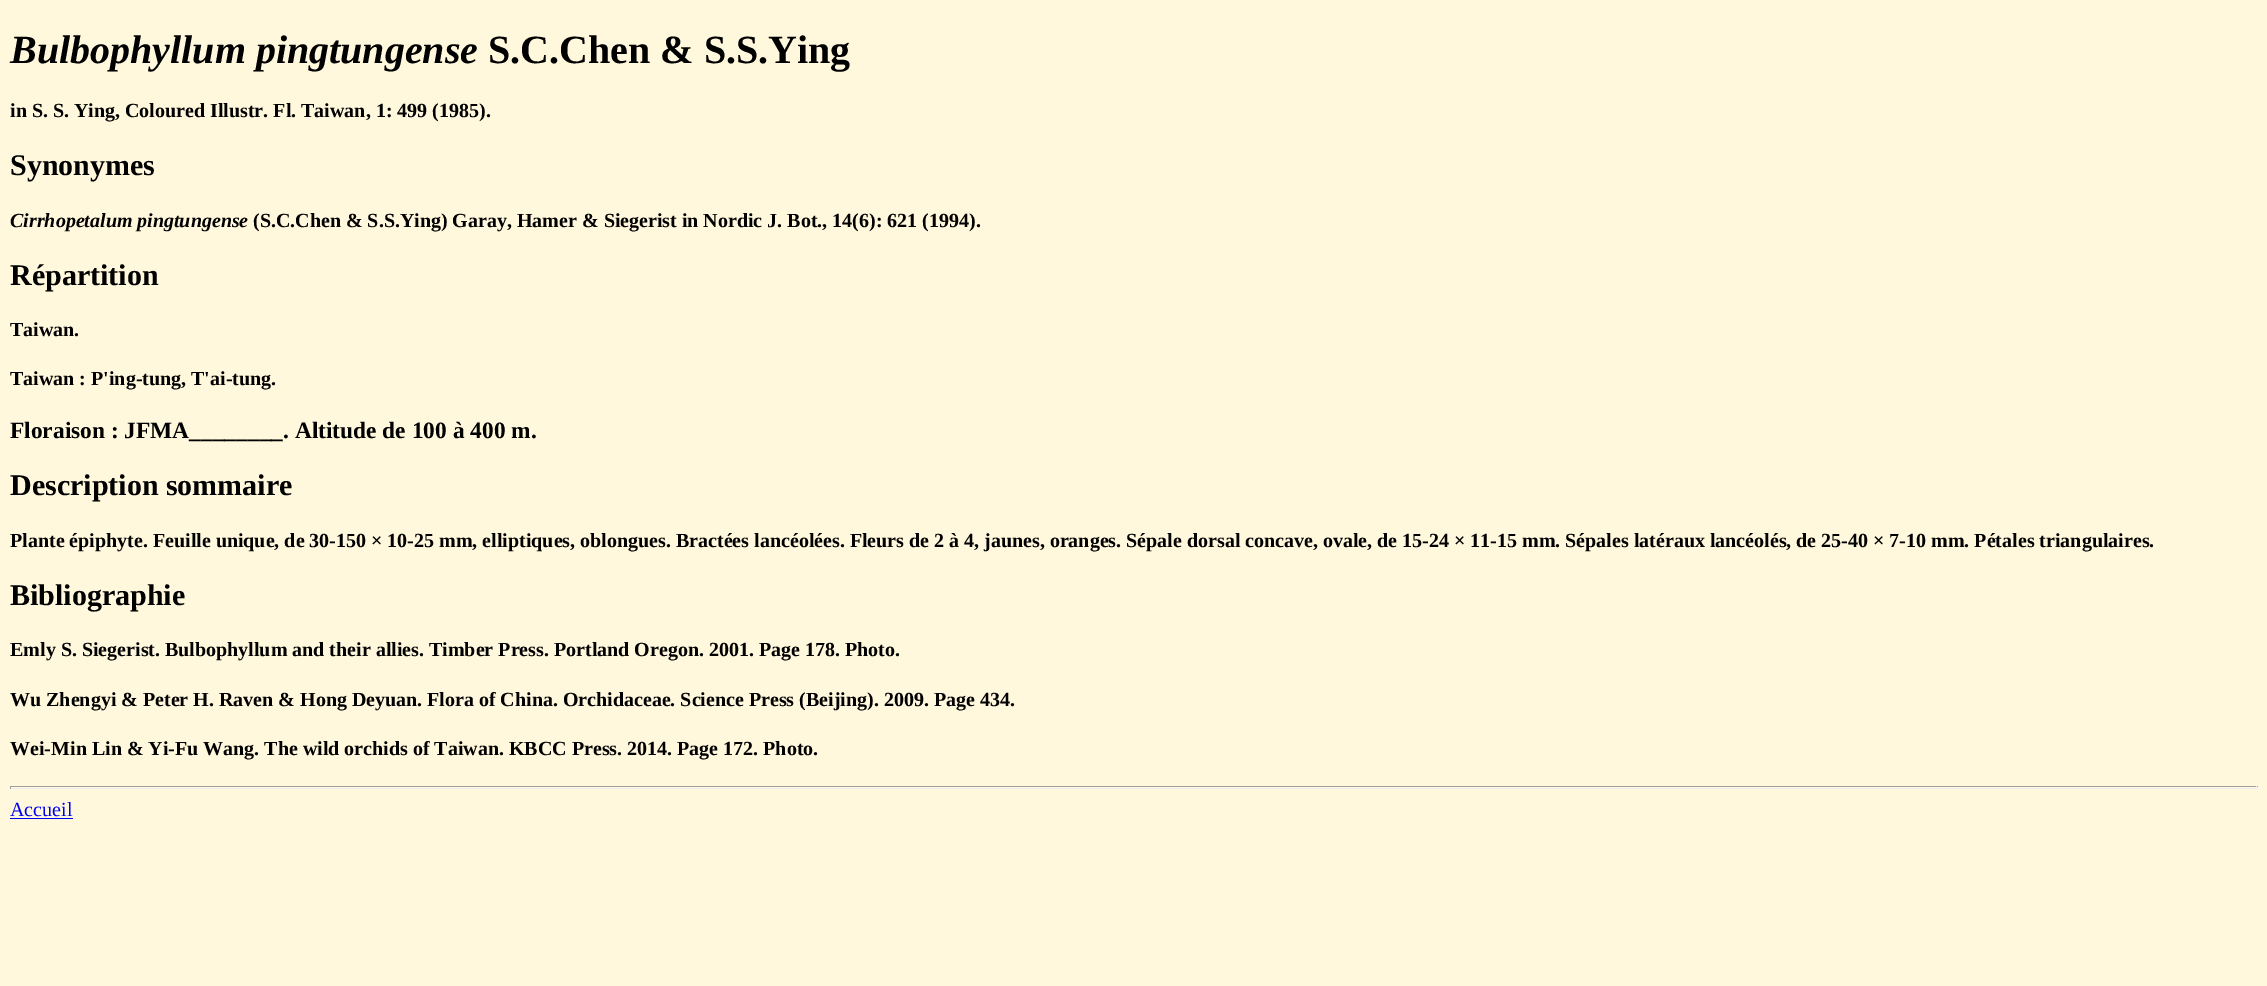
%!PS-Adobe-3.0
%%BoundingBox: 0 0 2267 986
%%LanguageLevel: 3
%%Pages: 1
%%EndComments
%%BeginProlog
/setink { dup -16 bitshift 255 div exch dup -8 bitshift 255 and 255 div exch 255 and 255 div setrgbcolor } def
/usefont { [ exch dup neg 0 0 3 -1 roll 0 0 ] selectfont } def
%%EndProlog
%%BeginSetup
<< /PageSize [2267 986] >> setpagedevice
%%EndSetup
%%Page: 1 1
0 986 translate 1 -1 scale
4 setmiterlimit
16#FFF8DC setink
0 0 2267 986 rectfill
/LiberationSerif-BoldItalic 40 usefont
16#000000 setink
10 63 moveto (Bulbophyllum pingtungense) show
/LiberationSerif-Bold 40 usefont
488 63 moveto (S.C.Chen & S.S.Ying) show
/LiberationSerif-Bold 20 usefont
10 117 moveto (in S. S. Ying, Coloured Illustr. Fl. Taiwan, 1: 499 \(1985\).) show
/LiberationSerif-Bold 30 usefont
10 175 moveto (Synonymes) show
/LiberationSerif-BoldItalic 20 usefont
10 227 moveto (Cirrhopetalum pingtungense) show
/LiberationSerif-Bold 20 usefont
253 227 moveto (\(S.C.Chen & S.S.Ying\) Garay, Hamer & Siegerist in Nordic J. Bot., 14\(6\): 621 \(1994\).) show
/LiberationSerif-Bold 30 usefont
10 285 moveto (Répartition) show
/LiberationSerif-Bold 20 usefont
10 336 moveto (Taiwan.) show
10 385 moveto (Taiwan : P'ing-tung, T'ai-tung.) show
/LiberationSerif-Bold 23.4 usefont
10 438 moveto (Floraison : JFMA________. Altitude de 100 à 400 m.) show
/LiberationSerif-Bold 30 usefont
10 495 moveto (Description sommaire) show
/LiberationSerif-Bold 20 usefont
10 547 moveto (Plante épiphyte. Feuille unique, de 30-150 × 10-25 mm, elliptiques, oblongues. Bractées lancéolées. Fleurs de 2 à 4, jaunes, oranges. Sépale dorsal concave, ovale, de 15-24 × 11-15 mm. Sépales latéraux lancéolés, de 25-40 × 7-10 mm. Pétales triangulaires.) show
/LiberationSerif-Bold 30 usefont
10 605 moveto (Bibliographie) show
/LiberationSerif-Bold 20 usefont
[
    [(Emly S. Siegerist. Bulbophyllum and their allies. Timber Press. Portland Oregon. 2001. Page 178. Photo.) 10 656]
    [(Wu Zhengyi & Peter H. Raven & Hong Deyuan. Flora of China. Orchidaceae. Science Press \(Beijing\). 2009. Page 434.) 10 706]
    [(Wei-Min Lin & Yi-Fu Wang. The wild orchids of Taiwan. KBCC Press. 2014. Page 172. Photo.) 10 755]
] { aload pop moveto show } forall
[
    [10 786 2248 1 16#9F9F9F]
    [2256 786 1 3 16#EEEEEE]
    [10 788 2248 1 16#EEEEEE]
    [10 786 1 3 16#9F9F9F]
] { aload pop setink rectfill } forall
/LiberationSerif-Regular 20 usefont
16#0000EE setink
10 816 moveto (Accueil) show
10 818 63 1 rectfill
showpage
%%EOF
